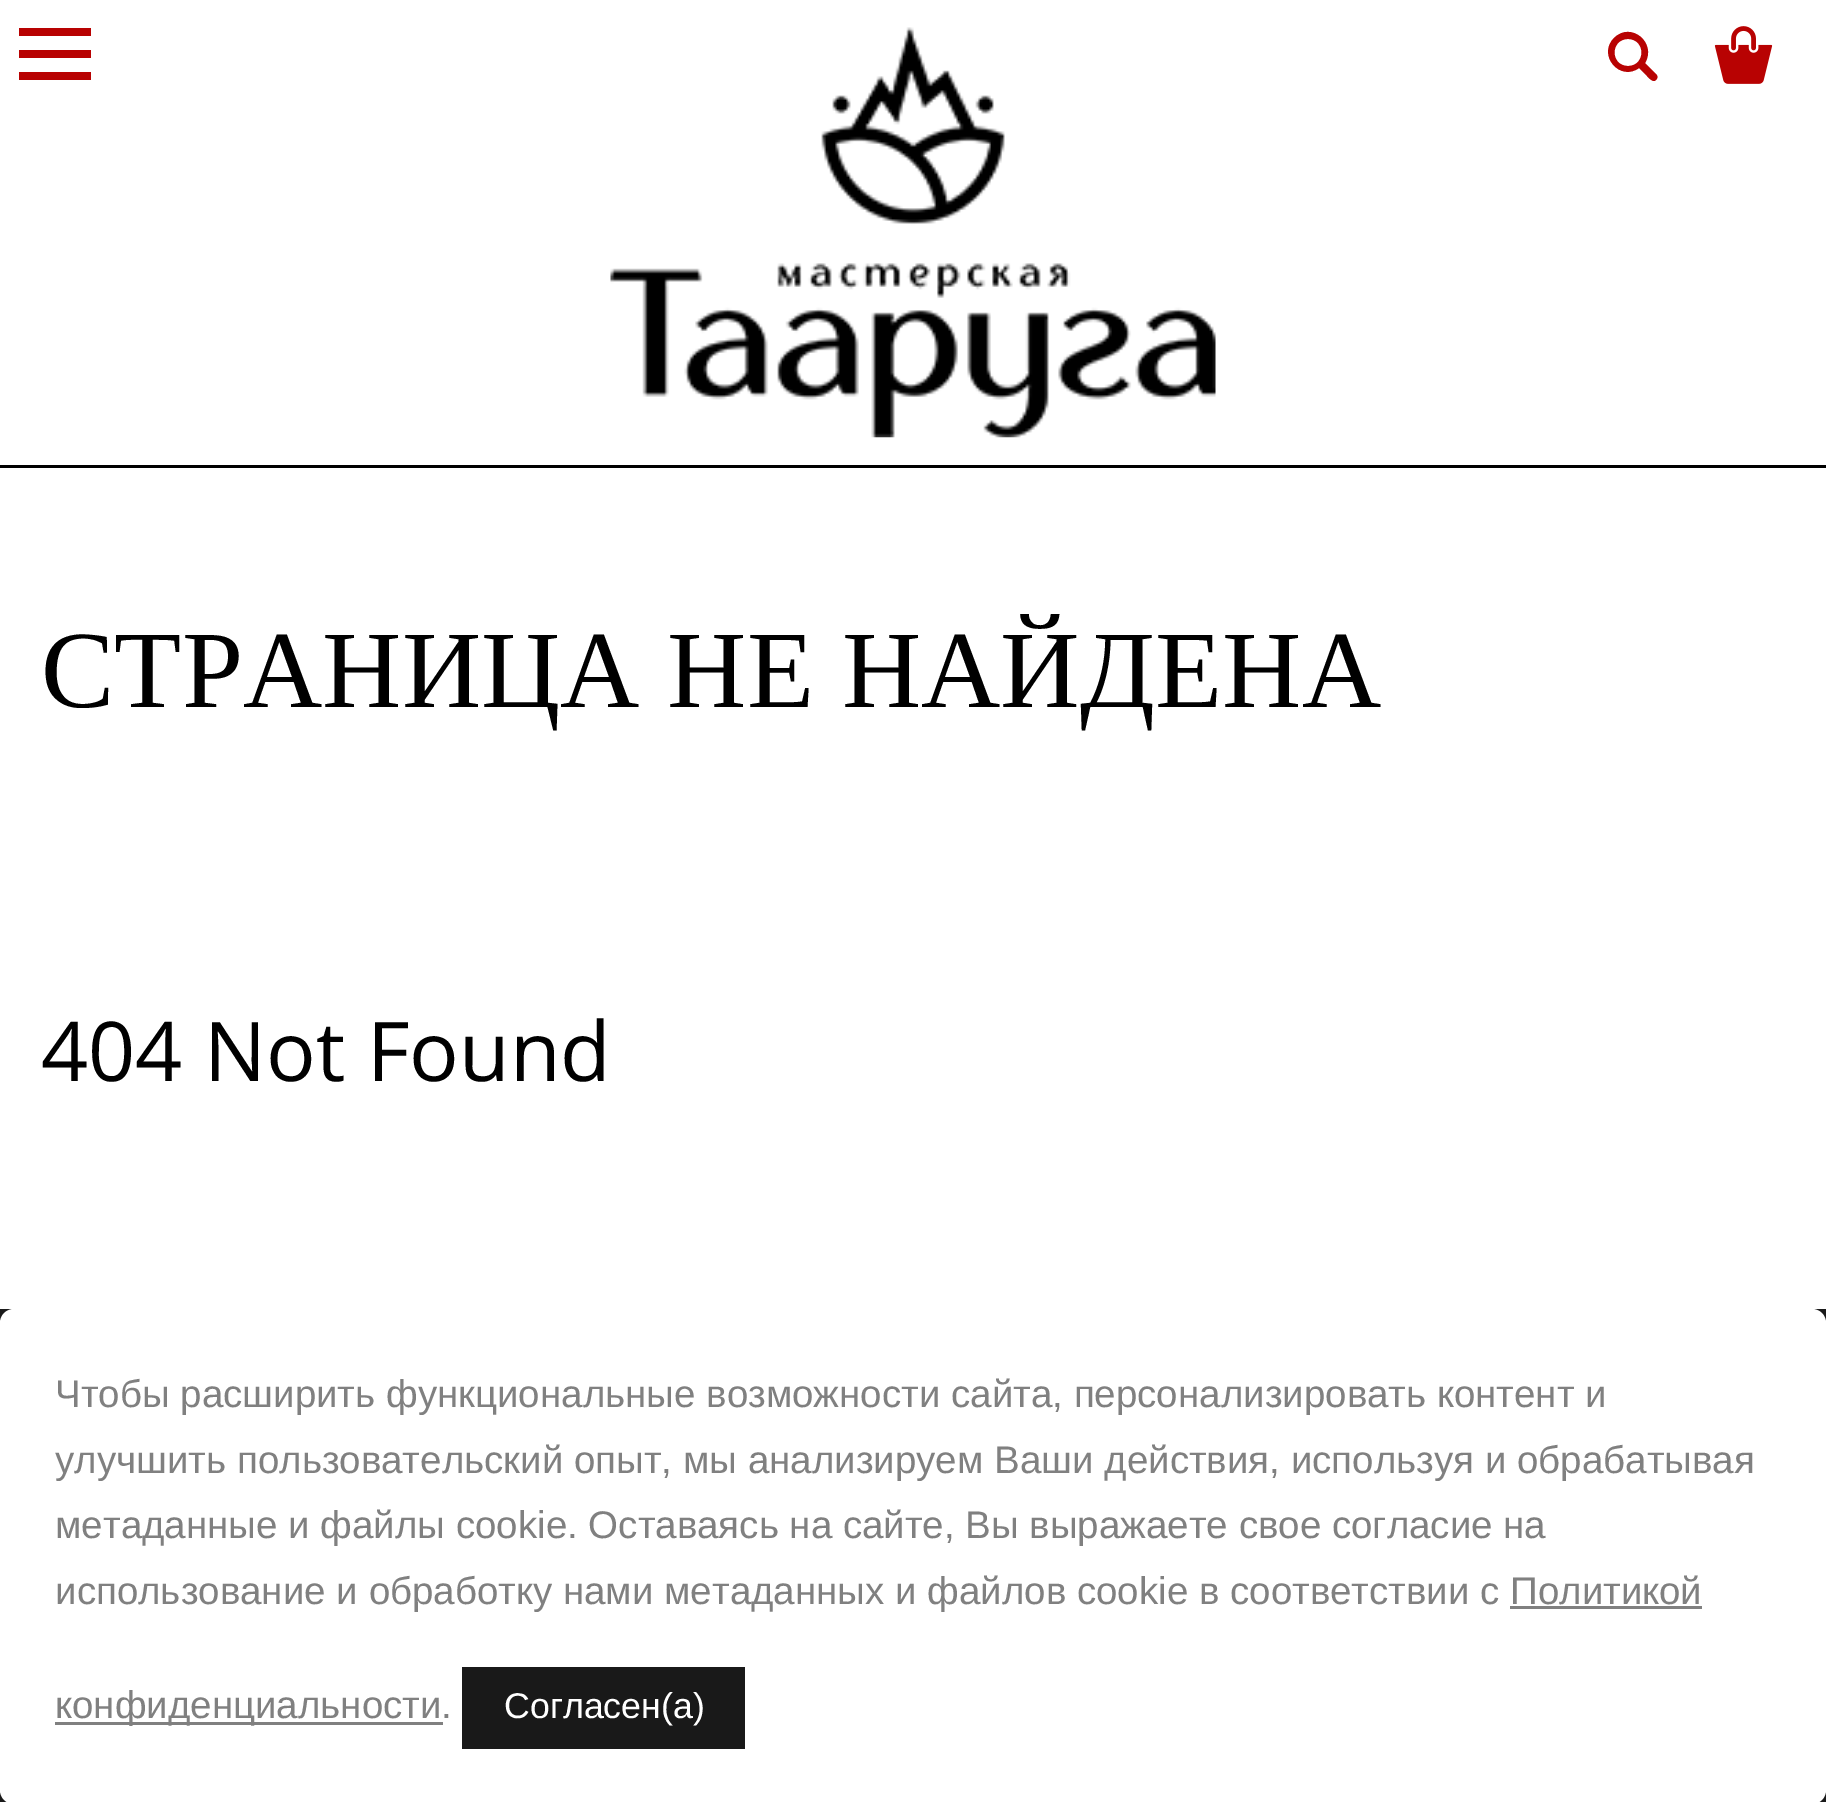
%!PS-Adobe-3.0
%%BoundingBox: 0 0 1826 1802
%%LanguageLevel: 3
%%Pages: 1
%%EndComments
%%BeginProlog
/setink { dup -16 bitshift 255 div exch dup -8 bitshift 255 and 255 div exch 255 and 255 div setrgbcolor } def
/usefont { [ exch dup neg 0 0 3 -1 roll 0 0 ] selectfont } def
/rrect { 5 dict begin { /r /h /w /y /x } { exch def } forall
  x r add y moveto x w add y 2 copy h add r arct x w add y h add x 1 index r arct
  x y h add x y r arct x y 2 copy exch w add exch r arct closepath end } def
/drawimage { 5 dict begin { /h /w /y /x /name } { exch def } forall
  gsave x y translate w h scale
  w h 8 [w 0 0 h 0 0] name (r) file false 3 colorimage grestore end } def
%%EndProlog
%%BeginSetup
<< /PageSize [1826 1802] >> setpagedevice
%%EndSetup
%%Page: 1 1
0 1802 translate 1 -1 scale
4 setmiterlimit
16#FFFFFF setink
0 0 1826 1802 rectfill
[
    [19 28 72 8 16#B80202]
    [19 50 72 8 16#B80202]
    [19 72 72 8 16#B80202]
] { aload pop setink rectfill } forall
1656 74 moveto 1645 63 lineto 1657 43 1631 21 1614 38 curveto 1597 55 1620 82 1639 68 curveto 1647 76 lineto 1649 78 1653 83 1656 80 curveto 1658 78 1658 76 1656 74 curveto closepath 1628 66 moveto 1610 66 1610 39 1628 39 curveto 1646 39 1646 66 1628 66 curveto closepath fill
(img1.raw) 1714 26 59 58 drawimage
16#000000 setink
0 465 1826 3 rectfill
(img2.raw) 610 27 606 411 drawimage
/LiberationSerif-Regular 110 usefont
41 707 moveto (СТРАНИЦА НЕ НАЙДЕНА) show
/OpenSans-Regular 82.5 usefont
41 1081 moveto (404 Not Found) show
16#1A1A1A setink
0 1309 1826 493 rectfill
16#FFFFFF setink
0 1309 1826 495 14 rrect fill
/LiberationSans-Regular 38.5 usefont
16#808080 setink
[
    [(Чтобы расширить функциональные возможности сайта, персонализировать контент и) 55 1407]
    [(улучшить пользовательский опыт, мы анализируем Ваши действия, используя и обрабатывая) 55 1473]
    [(метаданные и файлы cookie. Оставаясь на сайте, Вы выражаете свое согласие на) 55 1538]
    [(использование и обработку нами метаданных и файлов cookie в соответствии с Политикой) 55 1604]
] { aload pop moveto show } forall
55 1722 388 3 rectfill
55 1718 moveto (конфиденциальности.) show
1510 1606 192 3 rectfill
16#191919 setink
462 1667 283 82 rectfill
/LiberationSans-Regular 35.75 usefont
16#FFFFFF setink
504 1718 moveto (Согласен\(а\)) show
showpage
%%EOF
